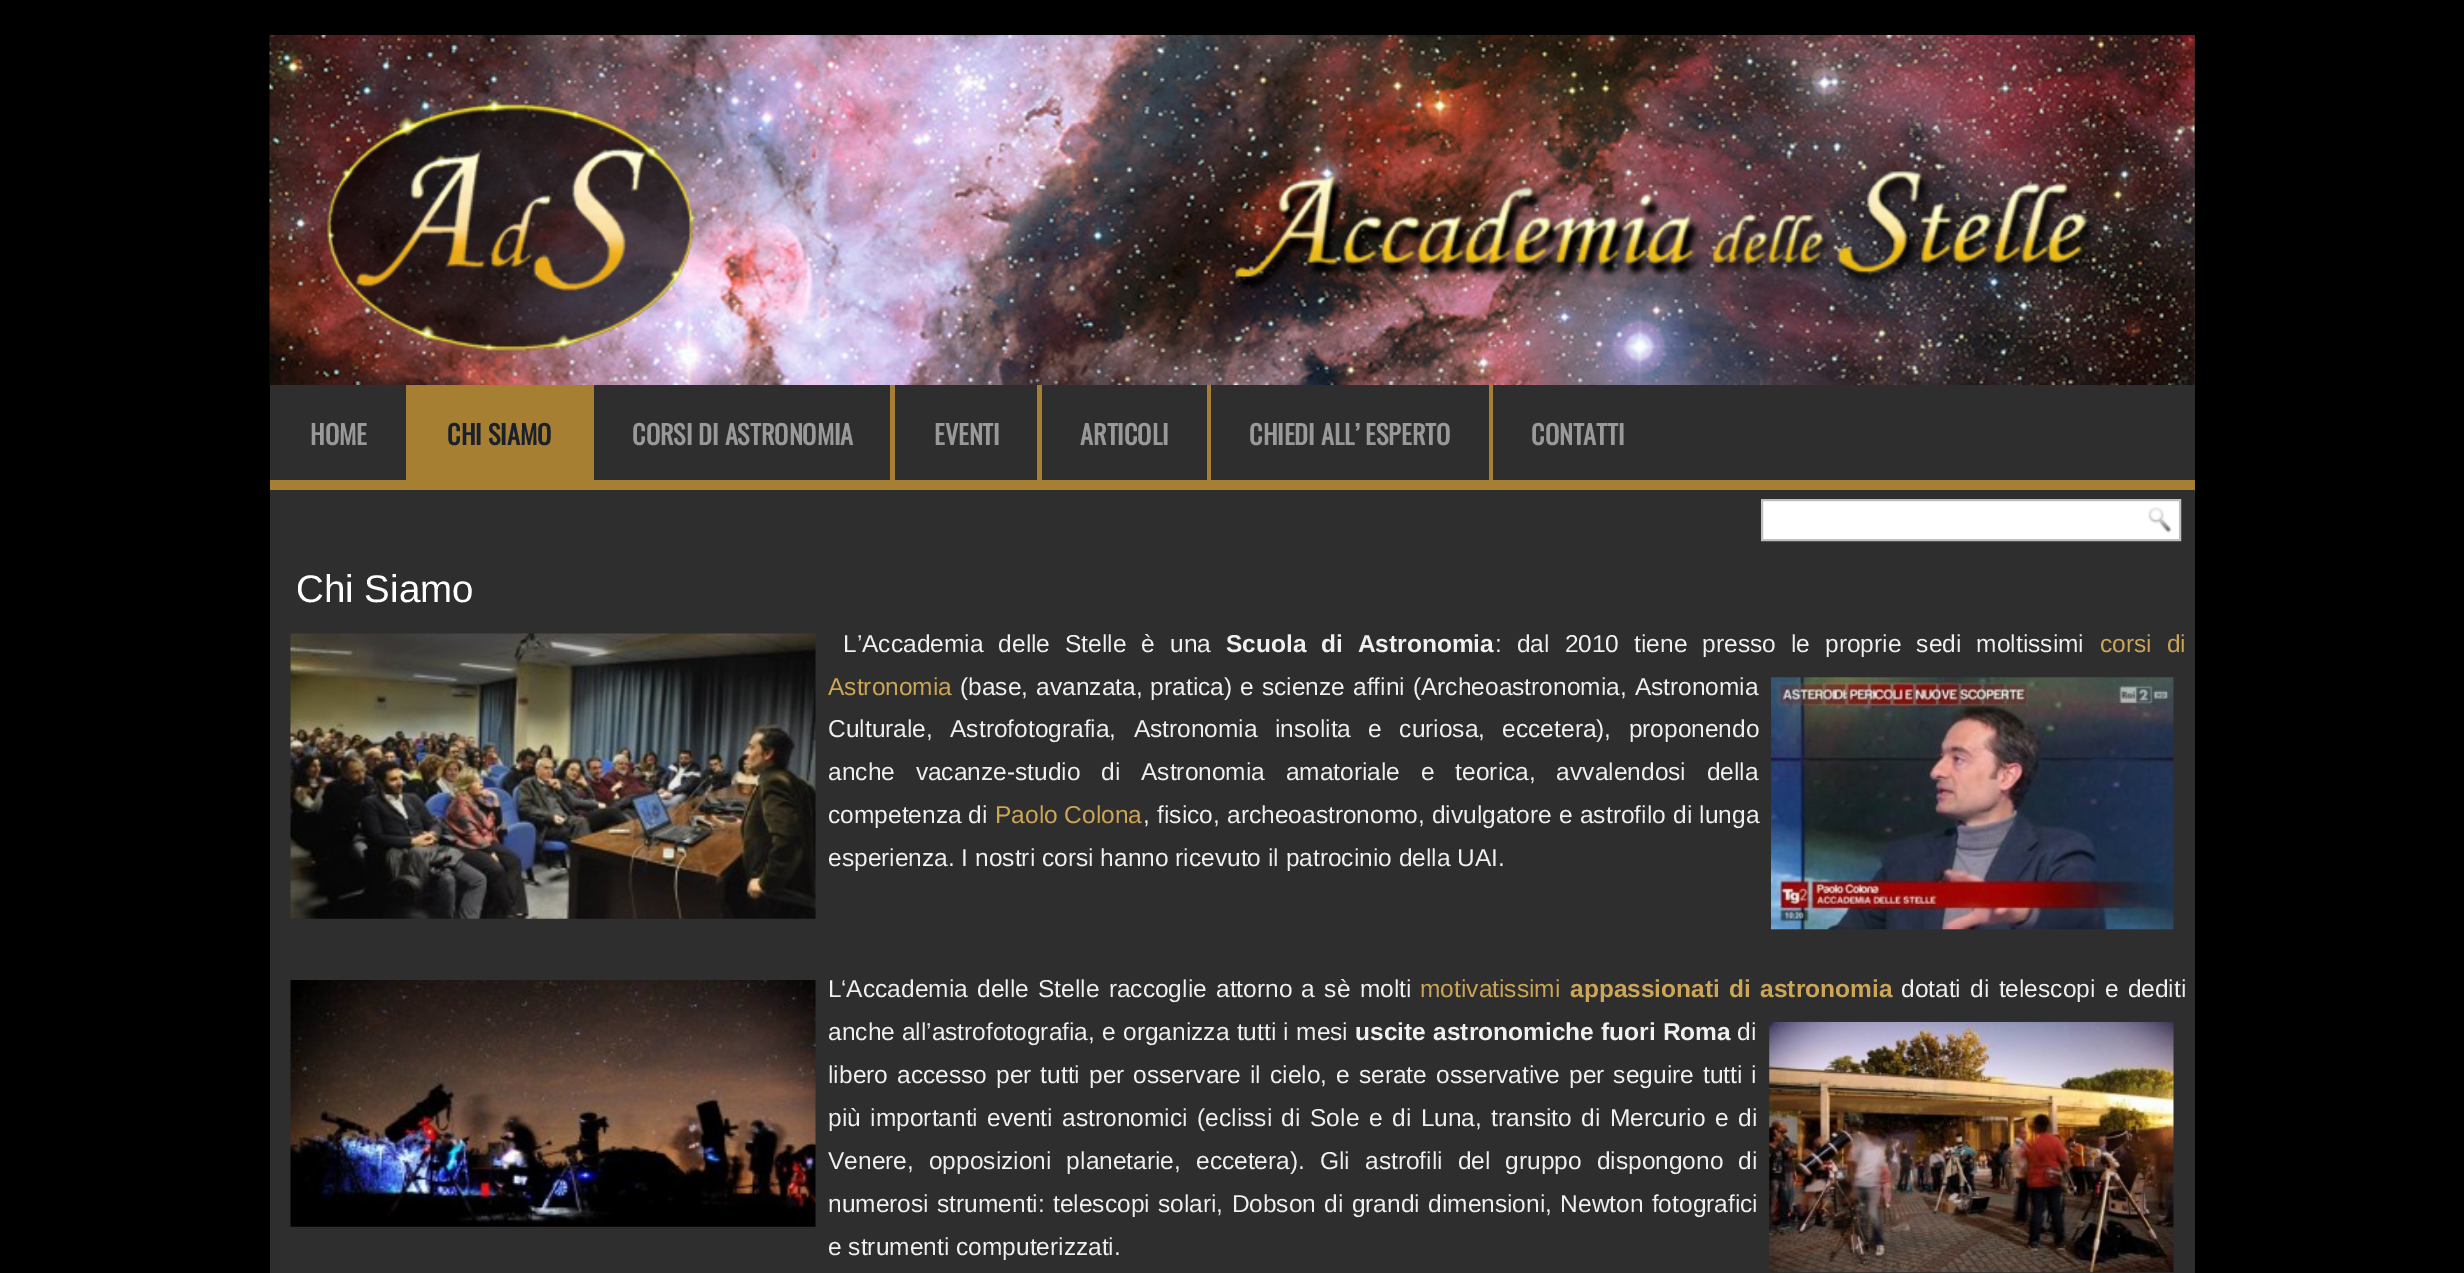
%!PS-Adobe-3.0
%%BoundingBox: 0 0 2464 1273
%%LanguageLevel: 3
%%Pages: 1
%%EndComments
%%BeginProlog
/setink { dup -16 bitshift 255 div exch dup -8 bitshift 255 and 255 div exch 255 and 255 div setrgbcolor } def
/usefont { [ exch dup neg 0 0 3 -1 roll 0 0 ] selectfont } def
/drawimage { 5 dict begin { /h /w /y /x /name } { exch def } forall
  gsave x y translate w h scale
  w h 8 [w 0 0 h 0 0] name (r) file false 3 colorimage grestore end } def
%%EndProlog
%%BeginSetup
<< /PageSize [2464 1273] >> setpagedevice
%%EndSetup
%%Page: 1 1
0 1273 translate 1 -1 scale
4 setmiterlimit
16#000000 setink
0 0 2464 1273 rectfill
16#2E2E2E setink
270 35 1925 1238 rectfill
(img1.raw) 269 35 1926 350 drawimage
16#A67F32 setink
270 480 1925 10 rectfill
/Oswald-Bold 26.25 usefont
16#999999 setink
310 445 moveto (HOME) show
16#A67F32 setink
406 385 188 95 rectfill
16#1A202C setink
447 445 moveto (CHI SIAMO) show
16#999999 setink
632 445 moveto (CORSI DI ASTRONOMIA) show
16#A67F32 setink
890 385 5 95 rectfill
16#999999 setink
934 445 moveto (EVENTI) show
16#A67F32 setink
1037 385 5 95 rectfill
16#999999 setink
1080 445 moveto (ARTICOLI) show
16#A67F32 setink
1207 385 4 95 rectfill
16#999999 setink
1249 445 moveto (CHIEDI ALL’ ESPERTO) show
16#A67F32 setink
1489 385 4 95 rectfill
16#999999 setink
1531 445 moveto (CONTATTI) show
16#FFFFFF setink
1762 500 moveto 2180 500 lineto 2180 540 lineto 1762 540 lineto closepath gsave fill grestore
16#BFBFBF setink
2 setlinewidth
stroke
(img2.raw) 2147 507 25 26 drawimage
/LiberationSans-Regular 38.5 usefont
16#FFFFFF setink
296 602 moveto (Chi Siamo) show
(img3.raw) 290 633 526 286 drawimage
/LiberationSans-Regular 24.5 usefont
16#F0F0F0 setink
843 652 moveto 8.25 0 32 (L’Accademia delle Stelle è una) widthshow
/LiberationSans-Bold 24.5 usefont
1226 652 moveto 8 0 32 (Scuola di Astronomia) widthshow
/LiberationSans-Regular 24.5 usefont
1495 652 moveto 8.25 0 32 (: dal 2010 tiene presso le proprie sedi moltissimi) widthshow
16#CDA556 setink
2100 652 moveto 8 0 32 (corsi di) widthshow
828 695 moveto (Astronomia) show
16#F0F0F0 setink
960 695 moveto 1.25 0 32 (\(base, avanzata, pratica\) e scienze affini \(Archeoastronomia, Astronomia) widthshow
(img4.raw) 1771 677 403 253 drawimage
828 737 moveto 10.5 0 32 (Culturale, Astrofotografia, Astronomia insolita e curiosa, eccetera\), proponendo) widthshow
828 780 moveto 14 0 32 (anche vacanze-studio di Astronomia amatoriale e teorica, avvalendosi della) widthshow
828 823 moveto (competenza di) show
16#CDA556 setink
995 823 moveto (Paolo Colona) show
16#F0F0F0 setink
1143 823 moveto 0.5 0 32 (, fisico, archeoastronomo, divulgatore e astrofilo di lunga) widthshow
828 866 moveto (esperienza. I nostri corsi hanno ricevuto il patrocinio della UAI.) show
(img5.raw) 290 980 526 247 drawimage
828 997 moveto (L) show
841 997 moveto 2.5 0 32 (‘Accademia delle Stelle raccoglie attorno a sè molti) widthshow
16#CDA556 setink
1420 997 moveto (motivatissimi) show
/LiberationSans-Bold 24.5 usefont
1570 997 moveto 2.5 0 32 (appassionati di astronomia) widthshow
/LiberationSans-Regular 24.5 usefont
16#F0F0F0 setink
1901 997 moveto 2.5 0 32 (dotati di telescopi e dediti) widthshow
828 1040 moveto (anche all’astrofotografia) show
1088 1040 moveto 0.5 0 32 (, e organizza tutti i mesi) widthshow
/LiberationSans-Bold 24.5 usefont
1355 1040 moveto 0.5 0 32 (uscite astronomiche fuori Roma) widthshow
/LiberationSans-Regular 24.5 usefont
1737 1040 moveto (di) show
(img6.raw) 1769 1022 405 251 drawimage
828 1083 moveto 2.25 0 32 (libero accesso per tutti per osservare il cielo, e serate osservative per seguire tutti i) widthshow
828 1126 moveto 2.75 0 32 (più importanti eventi astronomici \(eclissi di Sole e di Luna, transito di Mercurio e di) widthshow
828 1169 moveto 8.25 0 32 (Venere, opposizioni planetarie, eccetera\). Gli astrofili del gruppo dispongono di) widthshow
828 1212 moveto 1.5 0 32 (numerosi strumenti: telescopi solari, Dobson di grandi dimensioni, Newton fotografici) widthshow
828 1255 moveto (e strumenti computerizzati.) show
showpage
%%EOF
